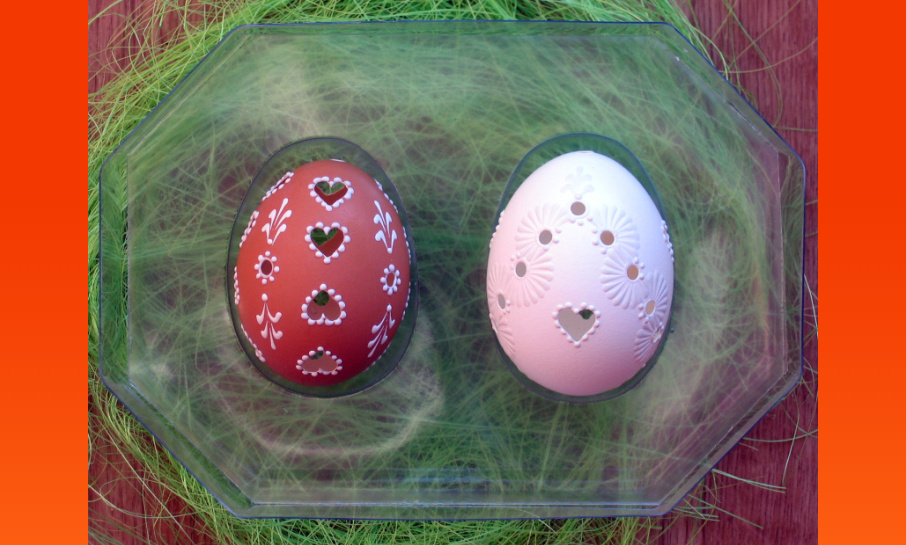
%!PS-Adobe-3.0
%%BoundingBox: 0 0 906 545
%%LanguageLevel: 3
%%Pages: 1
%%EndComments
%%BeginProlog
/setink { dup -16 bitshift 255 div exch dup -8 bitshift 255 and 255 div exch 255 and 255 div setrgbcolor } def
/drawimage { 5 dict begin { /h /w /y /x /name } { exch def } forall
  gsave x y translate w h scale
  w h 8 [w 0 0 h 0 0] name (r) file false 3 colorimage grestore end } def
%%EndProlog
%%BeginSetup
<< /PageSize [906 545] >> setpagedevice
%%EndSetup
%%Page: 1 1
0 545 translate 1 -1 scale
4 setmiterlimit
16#FFFFFF setink
0 0 906 545 rectfill
(img1.raw) 0 0 906 545 drawimage
(img2.raw) 88 0 730 545 drawimage
showpage
%%EOF
